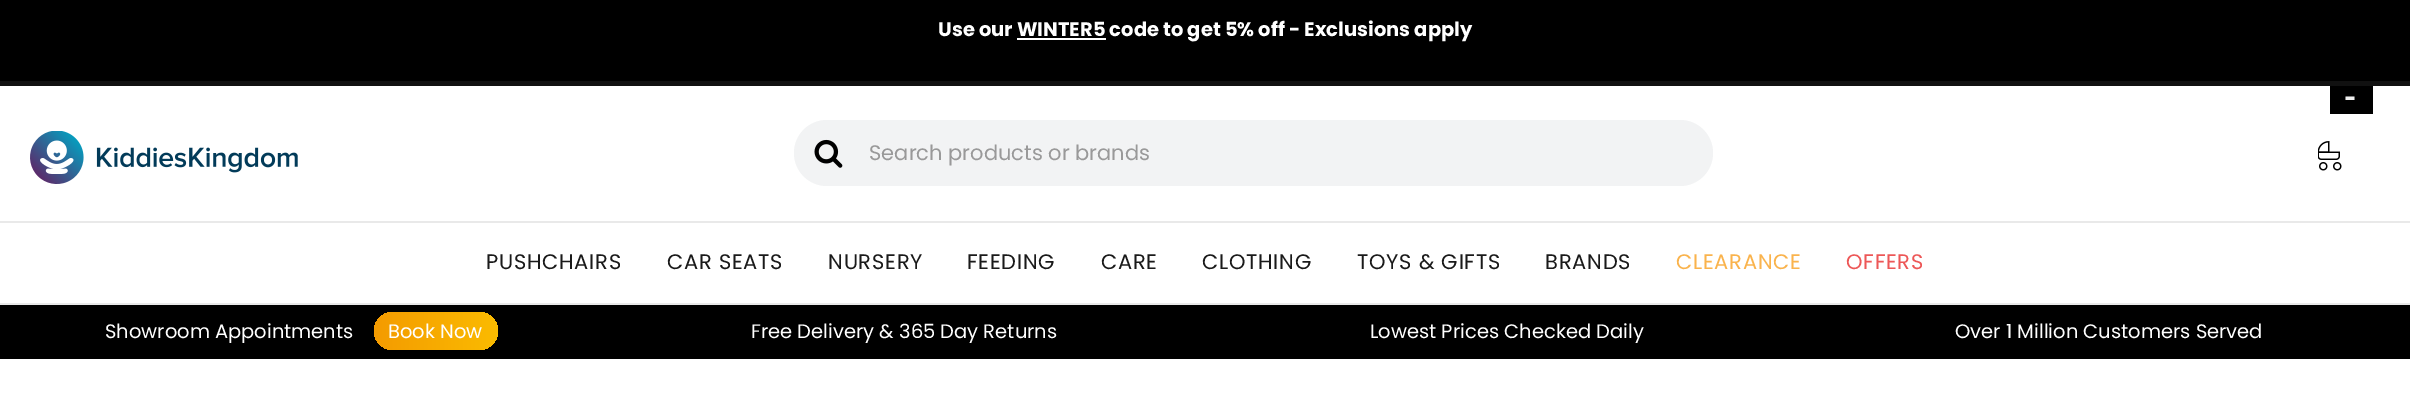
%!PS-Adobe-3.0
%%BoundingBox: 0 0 2410 416
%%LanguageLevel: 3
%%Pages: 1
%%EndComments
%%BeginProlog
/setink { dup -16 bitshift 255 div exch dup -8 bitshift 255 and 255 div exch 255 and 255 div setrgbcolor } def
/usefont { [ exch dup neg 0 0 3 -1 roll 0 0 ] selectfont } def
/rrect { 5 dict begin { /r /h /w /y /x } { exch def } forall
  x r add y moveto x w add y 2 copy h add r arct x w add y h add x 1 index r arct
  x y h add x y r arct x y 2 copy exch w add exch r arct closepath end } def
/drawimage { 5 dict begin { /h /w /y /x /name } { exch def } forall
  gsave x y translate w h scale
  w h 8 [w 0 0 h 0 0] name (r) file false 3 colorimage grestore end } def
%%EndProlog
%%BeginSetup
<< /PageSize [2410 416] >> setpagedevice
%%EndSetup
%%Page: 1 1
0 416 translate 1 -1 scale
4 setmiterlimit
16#FFFFFF setink
0 0 2410 416 rectfill
16#000000 setink
0 0 2410 81 rectfill
/Poppins-Bold 19.5 usefont
16#FFFFFF setink
938 36 moveto (Use our WINTER5 code to get 5% off - Exclusions apply) show
[
    [1017 38 89 2 16#FFFFFF]
    [0 81 2410 5 16#111111]
    [2330 86 43 28 16#000000]
] { aload pop setink rectfill } forall
/Poppins-Black 19.5 usefont
16#EFEFEF setink
2345 105 moveto (-) show
(img1.raw) 30 131 268 53 drawimage
16#F2F3F4 setink
794 120 919 66 33 rrect fill
(img2.raw) 814 139 29 29 drawimage
/Poppins-Regular 21 usefont
16#999999 setink
869 160 moveto (Search products or brands) show
(img3.raw) 2318 141 24 30 drawimage
16#E9E9E9 setink
0 221 2410 2 rectfill
0 303 2410 2 rectfill
16#1A1A1A setink
486 269 moveto 0.75 0 (PUSHCHAIRS) ashow
667 269 moveto 0.75 0 (CAR SEATS) ashow
828 269 moveto 0.75 0 (NURSERY) ashow
967 269 moveto 0.75 0 (FEEDING) ashow
1101 269 moveto 0.75 0 (CARE) ashow
1202 269 moveto 0.75 0 (CLOTHING) ashow
1357 269 moveto 0.75 0 (TOYS & GIFTS) ashow
1545 269 moveto 0.75 0 (BRANDS) ashow
16#FAB34C setink
1676 269 moveto 0.75 0 (CLEARANCE) ashow
16#ED5757 setink
1846 269 moveto 0.75 0 (OFFERS) ashow
16#000000 setink
0 305 2410 54 rectfill
/Poppins-Regular 19.5 usefont
16#FFFFFF setink
105 338 moveto (Showroom Appointments) show
gsave 374 312 124 38 19 rrect clip newpath
<< /ShadingType 2 /ColorSpace /DeviceRGB /Coords [374 331 498 331] /Extend [true true] /Function << /FunctionType 2 /Domain [0 1] /C0 [0.957 0.608 0] /C1 [0.984 0.733 0] /N 1 >> >> shfill grestore
[
    [(Book Now) 388 338]
    [(Free Delivery & 365 Day Returns) 751 338]
    [(Lowest Prices Checked Daily) 1370 338]
    [(Over 1 Million Customers Served) 1955 338]
] { aload pop moveto show } forall
showpage
%%EOF
